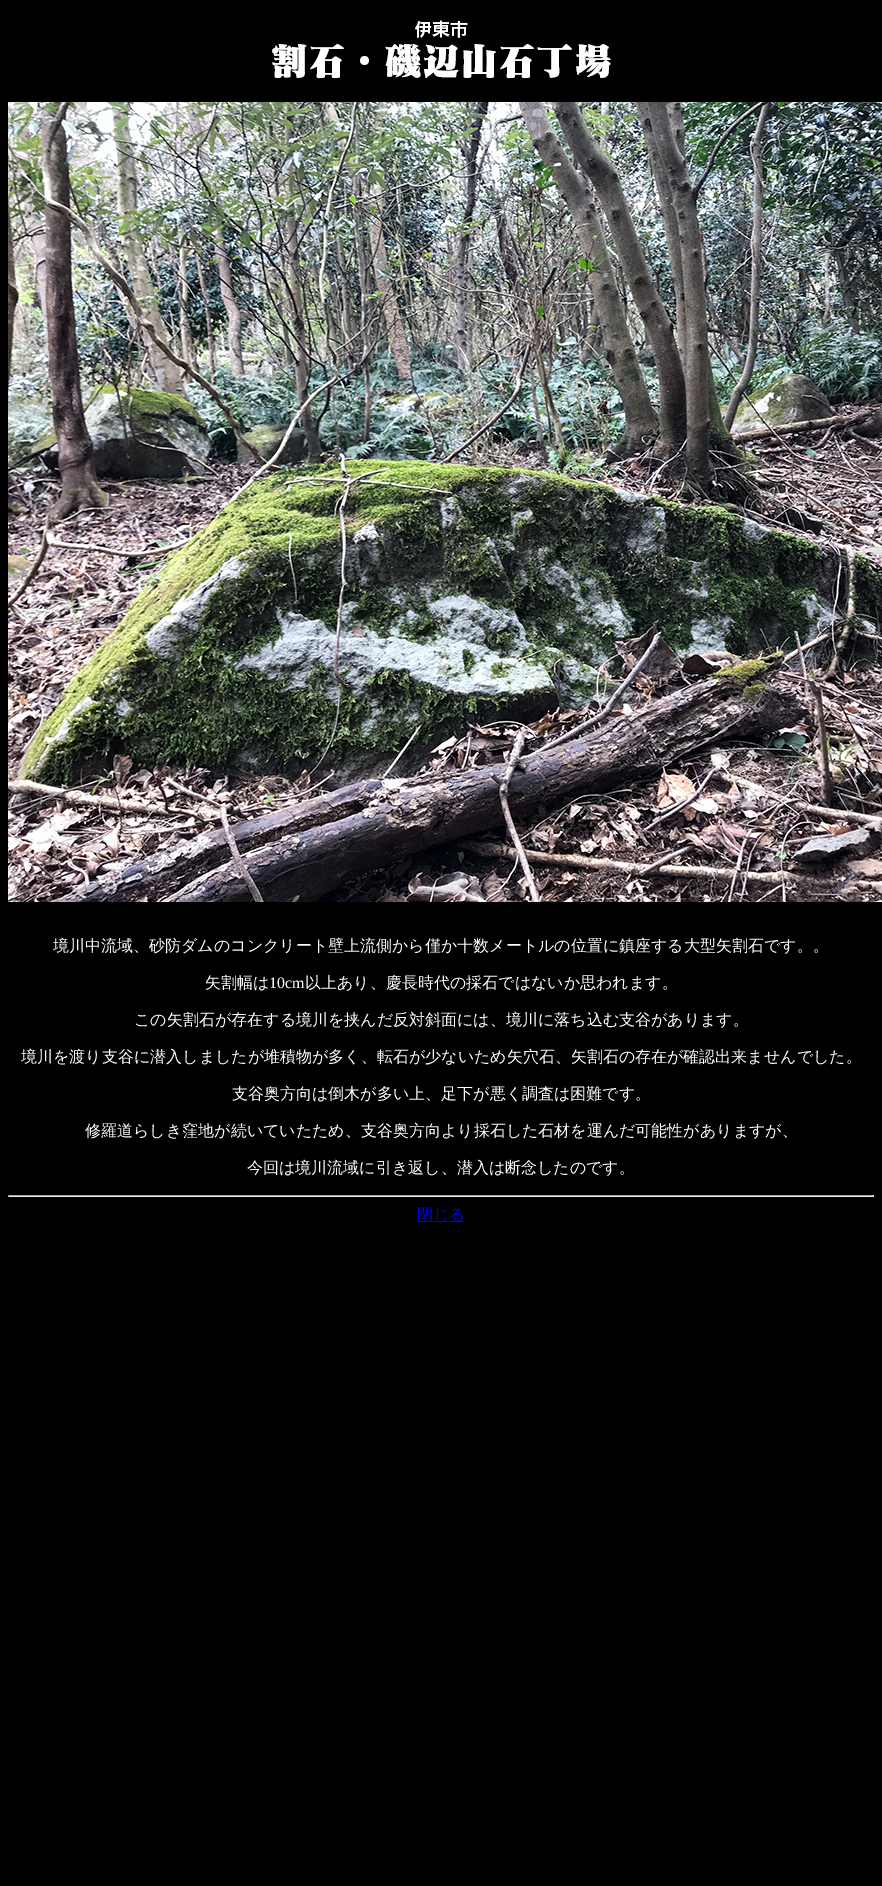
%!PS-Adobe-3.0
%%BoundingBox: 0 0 882 1886
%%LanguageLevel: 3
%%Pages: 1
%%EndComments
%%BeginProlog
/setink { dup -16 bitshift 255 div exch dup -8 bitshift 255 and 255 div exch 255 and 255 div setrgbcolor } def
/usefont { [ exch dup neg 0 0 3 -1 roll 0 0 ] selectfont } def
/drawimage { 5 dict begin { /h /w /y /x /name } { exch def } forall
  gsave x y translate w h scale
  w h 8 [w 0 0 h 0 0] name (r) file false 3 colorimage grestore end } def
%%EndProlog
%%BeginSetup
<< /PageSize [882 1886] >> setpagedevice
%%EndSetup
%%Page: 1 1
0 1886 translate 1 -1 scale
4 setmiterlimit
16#000000 setink
0 0 882 1886 rectfill
(img1.raw) 272 20 339 59 drawimage
(img2.raw) 8 102 874 800 drawimage
/WenQuanYiZenHei-Medium 16 usefont
16#FFFFFF setink
53 951 moveto (境川中流域、砂防ダムのコンクリート壁上流側から僅か十数メートルの位置に鎮座する大型矢割石です。。) show
205 988 moveto (矢割幅は) show
/LiberationSerif-Regular 16 usefont
269 988 moveto (10cm) show
/WenQuanYiZenHei-Medium 16 usefont
[
    [(以上あり、慶長時代の採石ではないか思われます。) 305 988]
    [(この矢割石が存在する境川を挟んだ反対斜面には、境川に落ち込む支谷があります。) 134 1025]
    [(境川を渡り支谷に潜入しましたが堆積物が多く、転石が少ないため矢穴石、矢割石の存在が確認出来ませんでした。) 21 1062]
    [(支谷奥方向は倒木が多い上、足下が悪く調査は困難です。) 232 1099]
    [(修羅道らしき窪地が続いていたため、支谷奥方向より採石した石材を運んだ可能性がありますが、) 85 1136]
    [(今回は境川流域に引き返し、潜入は断念したのです。) 247 1173]
] { aload pop moveto show } forall
[
    [8 1195 866 1 16#9F9F9F]
    [873 1195 1 2 16#EEEEEE]
    [8 1196 866 1 16#EEEEEE]
    [8 1195 1 2 16#9F9F9F]
    [417 1221 48 1 16#0000EE]
] { aload pop setink rectfill } forall
417 1220 moveto (閉じる) show
showpage
%%EOF
